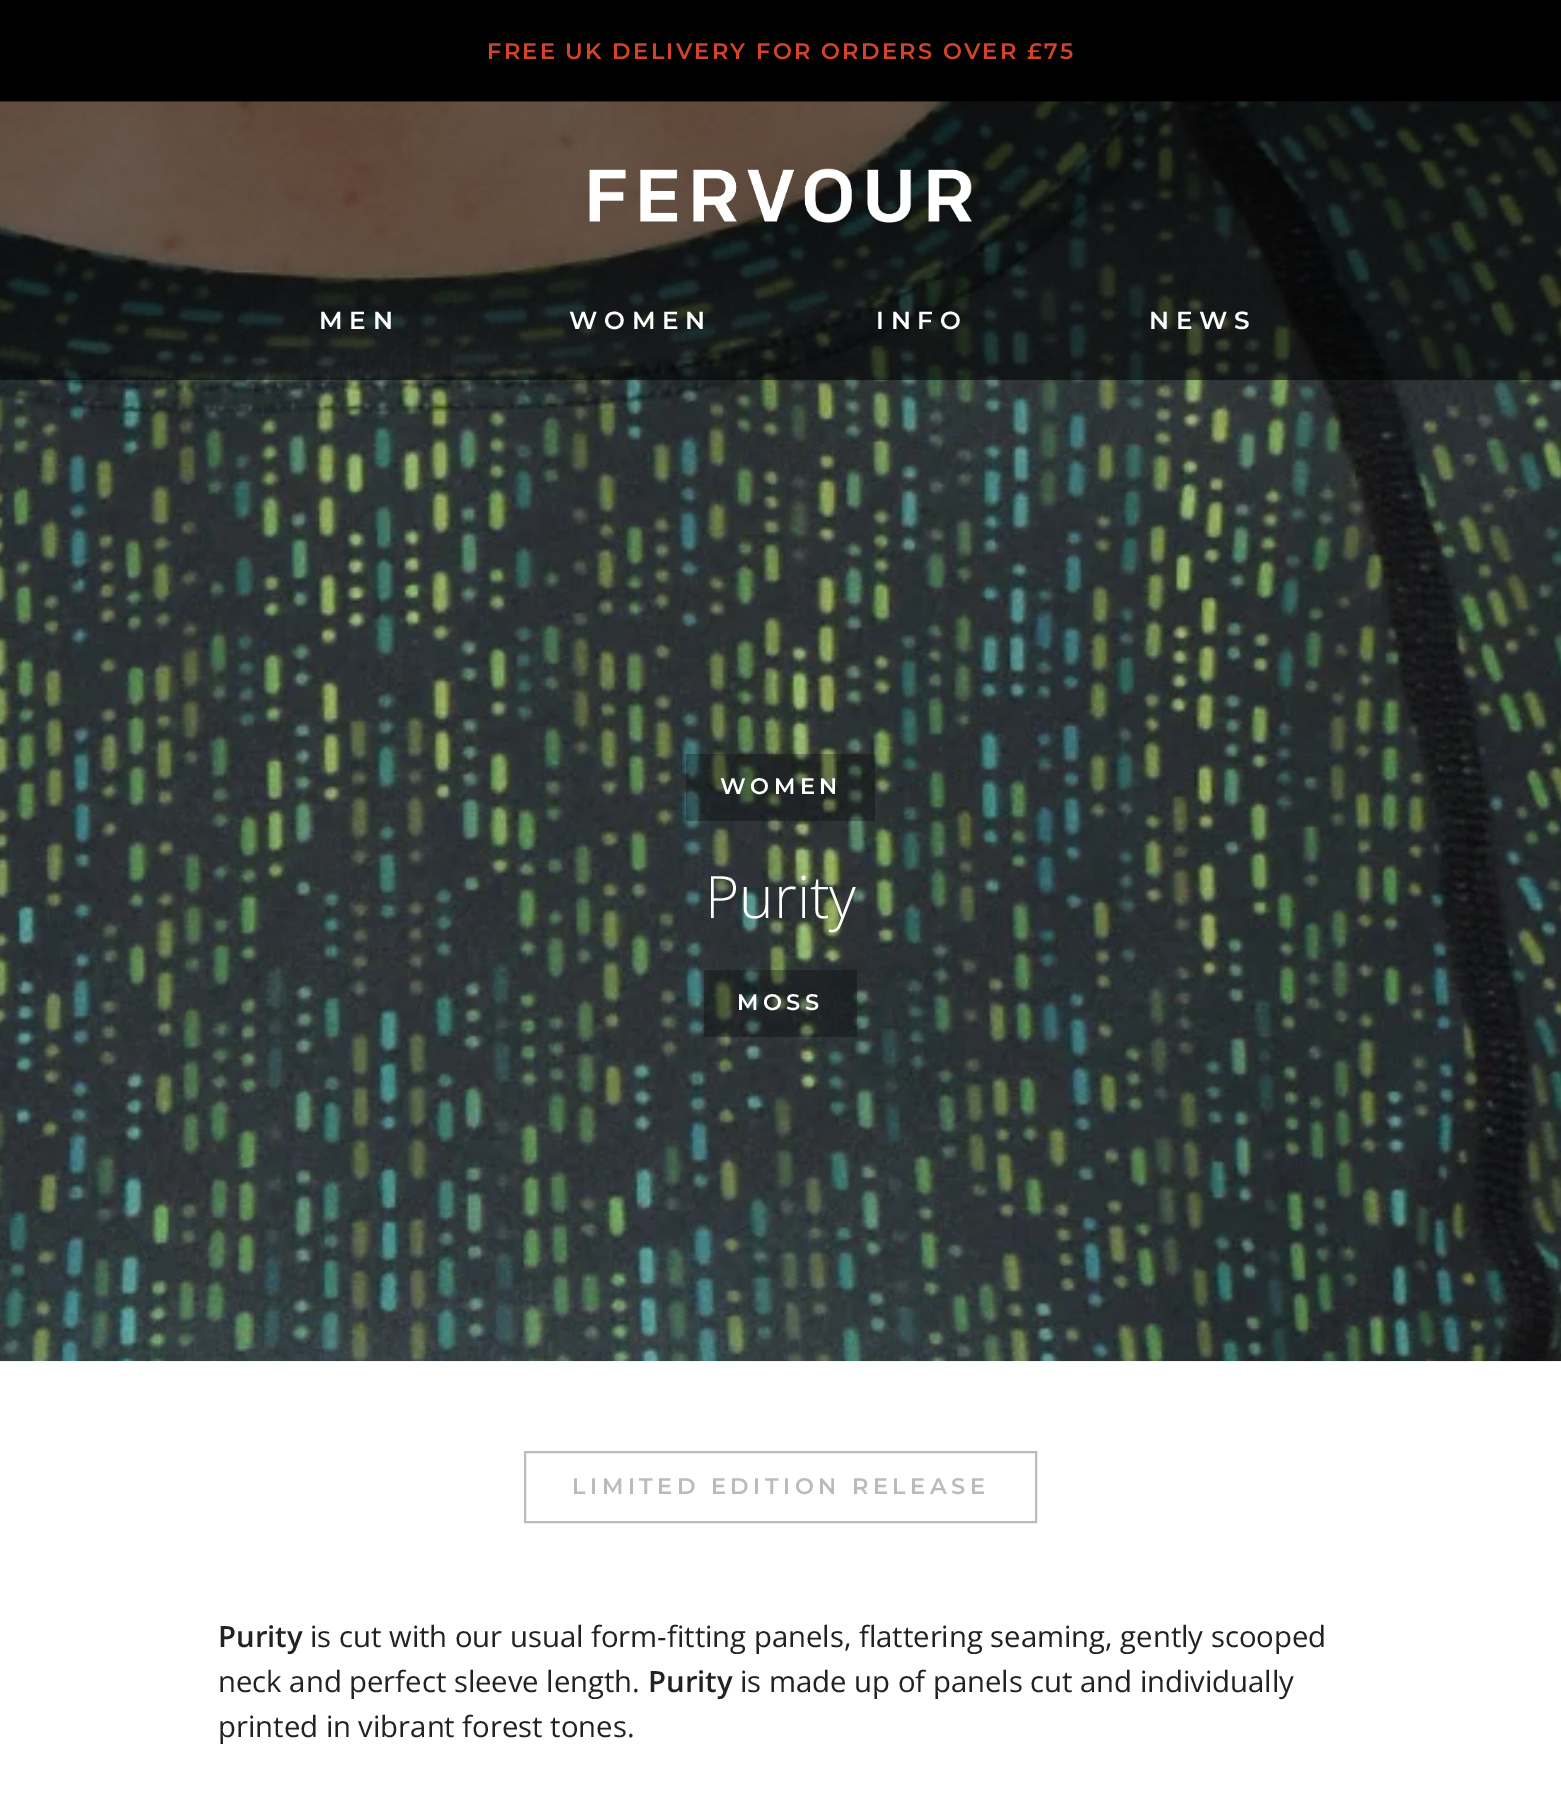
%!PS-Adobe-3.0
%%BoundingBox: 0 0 1561 1818
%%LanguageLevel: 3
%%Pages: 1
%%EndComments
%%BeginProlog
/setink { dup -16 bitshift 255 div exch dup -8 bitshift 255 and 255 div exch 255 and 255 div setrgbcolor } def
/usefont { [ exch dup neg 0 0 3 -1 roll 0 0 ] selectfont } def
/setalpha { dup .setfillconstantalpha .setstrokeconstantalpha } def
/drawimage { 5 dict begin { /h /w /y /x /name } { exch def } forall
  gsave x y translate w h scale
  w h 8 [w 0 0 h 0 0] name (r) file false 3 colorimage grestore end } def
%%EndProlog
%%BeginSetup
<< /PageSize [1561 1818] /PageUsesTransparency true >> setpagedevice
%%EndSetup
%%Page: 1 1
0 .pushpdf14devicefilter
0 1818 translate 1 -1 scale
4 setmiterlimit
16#FFFFFF setink
0 0 1561 1818 rectfill
16#000000 setink
0 0 1561 102 rectfill
/Montserrat-Thin 22.5 usefont
16#D34327 setink
487 59 moveto 2.25 0 (FREE UK DELIVERY FOR ORDERS OVER £75) ashow
(img2.raw) 0 101 1561 1261 drawimage
0.6 setalpha
16#000000 setink
0 101 1561 279 rectfill
1 setalpha
(img1.raw) 589 168 383 55 drawimage
/Montserrat-Thin 24.75 usefont
16#FFFFFF setink
319 329 moveto 6.75 0 (MEN) ashow
569 329 moveto 6.75 0 (WOMEN) ashow
876 329 moveto 6.75 0 (INFO) ashow
1149 329 moveto 6.75 0 (NEWS) ashow
0.3 setalpha
16#000000 setink
686 754 189 67 rectfill
/Montserrat-Thin 22.5 usefont
1 setalpha
16#FFFFFF setink
720 794 moveto 4.5 0 (WOMEN) ashow
/OpenSans-Light 58.5 usefont
705 918 moveto (Purity) show
0.3 setalpha
16#000000 setink
704 970 153 67 rectfill
/Montserrat-Thin 22.5 usefont
1 setalpha
16#FFFFFF setink
737 1010 moveto 4.5 0 (MOSS) ashow
16#BBBBBB setink
2 setlinewidth
525 1452 511 70 rectstroke
572 1494 moveto 4.5 0 (LIMITED EDITION RELEASE) ashow
/OpenSans-SemiBold 29.25 usefont
16#222222 setink
218 1647 moveto (Purity) show
/OpenSans-Regular 29.25 usefont
310 1647 moveto (is cut with our usual form-fitting panels, flattering seaming, gently scooped) show
218 1692 moveto (neck and perfect sleeve length.) show
/OpenSans-SemiBold 29.25 usefont
648 1692 moveto (Purity) show
/OpenSans-Regular 29.25 usefont
740 1692 moveto (is made up of panels cut and individually) show
218 1737 moveto (printed in vibrant forest tones.) show
.poppdf14devicefilter showpage
%%EOF
